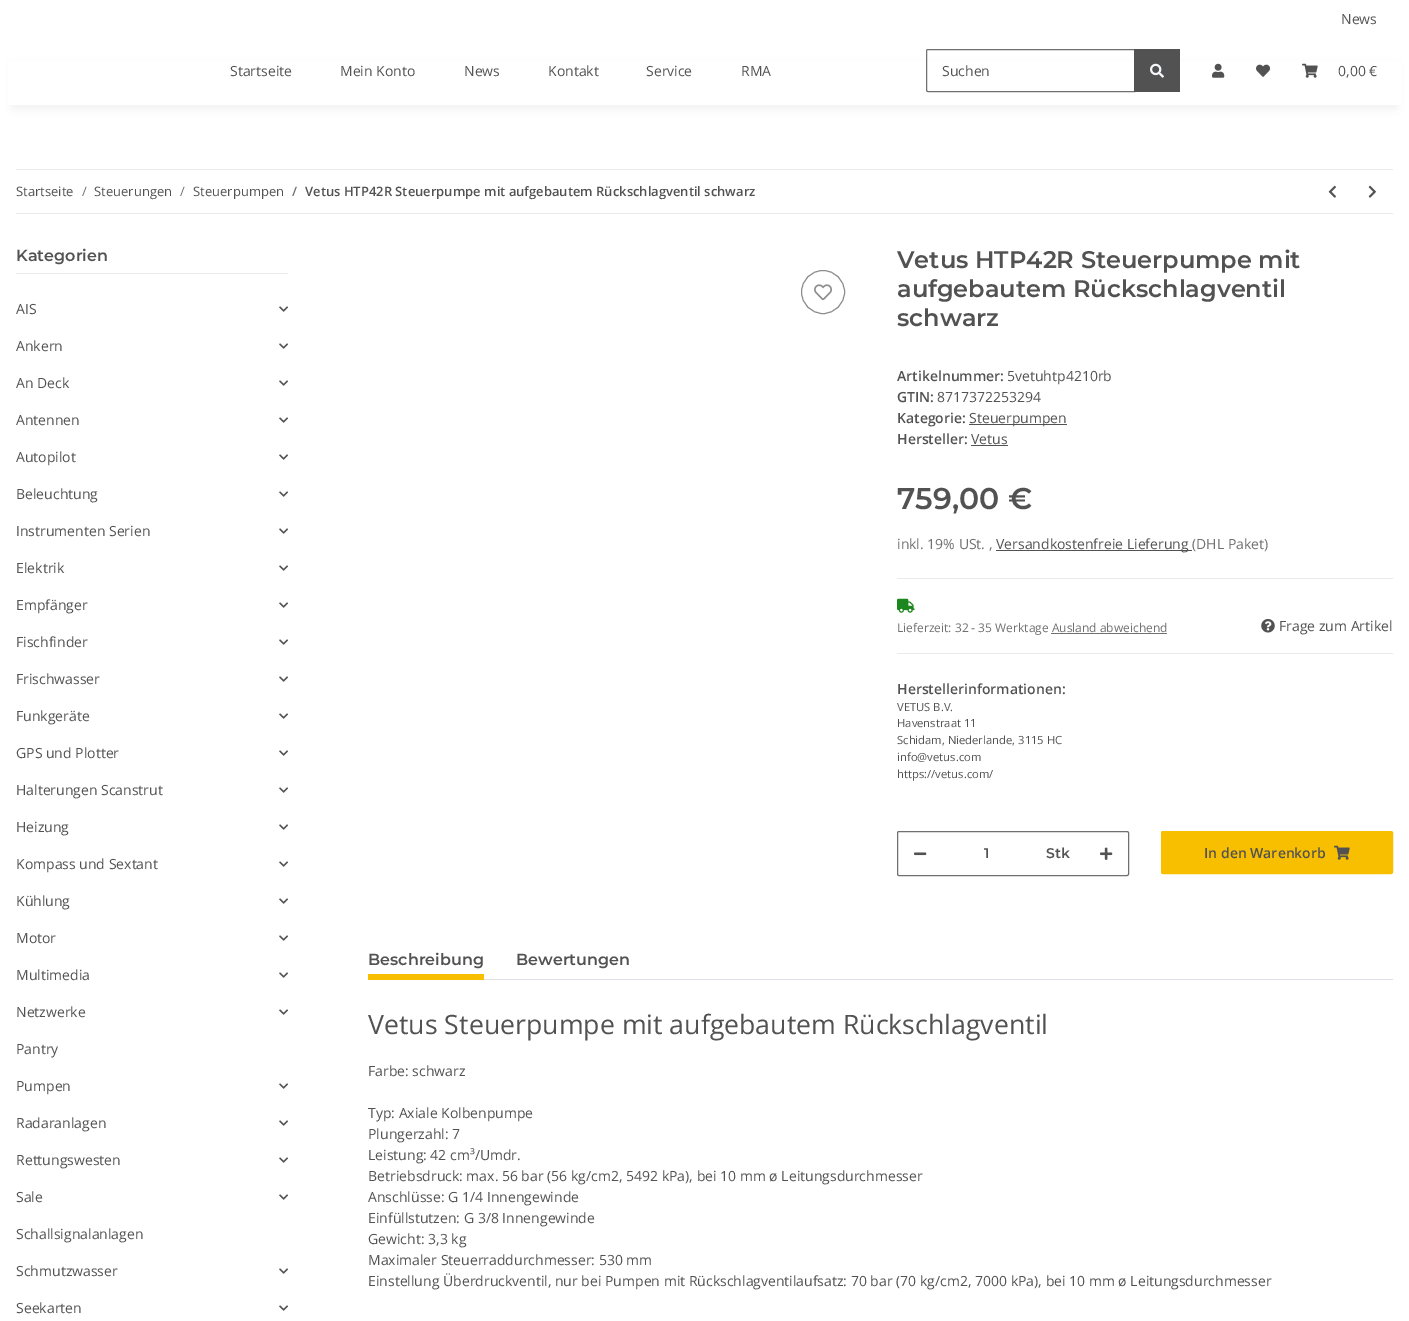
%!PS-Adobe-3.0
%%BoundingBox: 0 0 1409 1321
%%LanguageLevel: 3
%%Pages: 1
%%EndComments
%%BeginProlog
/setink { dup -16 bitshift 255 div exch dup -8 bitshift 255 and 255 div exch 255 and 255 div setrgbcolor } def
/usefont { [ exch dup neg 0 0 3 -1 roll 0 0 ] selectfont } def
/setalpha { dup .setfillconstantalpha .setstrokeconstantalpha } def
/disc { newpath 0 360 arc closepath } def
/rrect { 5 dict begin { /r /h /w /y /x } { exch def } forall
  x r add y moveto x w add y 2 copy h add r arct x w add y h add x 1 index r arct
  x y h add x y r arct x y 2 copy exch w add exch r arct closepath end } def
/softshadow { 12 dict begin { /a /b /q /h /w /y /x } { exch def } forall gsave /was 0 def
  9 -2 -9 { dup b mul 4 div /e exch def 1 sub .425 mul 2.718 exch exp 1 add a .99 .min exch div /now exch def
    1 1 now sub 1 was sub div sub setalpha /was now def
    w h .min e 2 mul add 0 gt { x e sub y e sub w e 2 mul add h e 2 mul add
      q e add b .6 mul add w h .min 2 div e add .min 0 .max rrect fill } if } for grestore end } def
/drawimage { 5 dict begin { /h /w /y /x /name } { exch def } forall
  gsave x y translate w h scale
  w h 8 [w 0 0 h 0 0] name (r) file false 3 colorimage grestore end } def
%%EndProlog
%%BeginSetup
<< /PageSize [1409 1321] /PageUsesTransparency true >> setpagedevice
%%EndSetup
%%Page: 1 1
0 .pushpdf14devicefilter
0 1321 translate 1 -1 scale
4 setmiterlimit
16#FFFFFF setink
0 0 1409 1321 rectfill
/OpenSans-Regular 14 usefont
16#525252 setink
1341 24 moveto (News) show
16#000000 setink
12 65 1385 44 0 4.5 0.06 softshadow
16#FFFFFF setink
8 61 1393 44 rectfill
16#525252 setink
[
    [(Startseite) 230 76]
    [(Mein Konto) 340 76]
    [(News) 464 76]
    [(Kontakt) 548 76]
    [(Service) 646 76]
    [(RMA) 741 76]
] { aload pop moveto show } forall
16#707070 setink
928 49.5 moveto 1134.5 49.5 lineto 1134.5 91.5 lineto 928 91.5 lineto 927 91.5 926.5 91 926.5 90 curveto 926.5 51 lineto 926.5 50 927 49.5 928 49.5 curveto closepath stroke
16#525252 setink
942 76 moveto (Suchen) show
1134 49 46 43 rectfill
(img1.raw) 1150 63 14 15 drawimage
(img2.raw) 1212 63 13 15 drawimage
(img3.raw) 1256 64 14 13 drawimage
(img4.raw) 1302 63 16 15 drawimage
1338 76 moveto (0,00 €) show
16#EBEBEB setink
16 169 1377 1 rectfill
16 213 1377 1 rectfill
/OpenSans-Regular 13 usefont
16#525252 setink
16 196 moveto (Startseite) show
16#707070 setink
82 196 moveto (/) show
16#525252 setink
94 196 moveto (Steuerungen) show
16#707070 setink
180 196 moveto (/) show
16#525252 setink
193 196 moveto (Steuerpumpen) show
/OpenSans-SemiBold 13 usefont
16#707070 setink
292 196 moveto (/) show
16#525252 setink
305 196 moveto (Vetus HTP42R Steuerpumpe mit aufgebautem Rückschlagventil schwarz) show
(img5.raw) 1328 185 8 13 drawimage
(img6.raw) 1368 185 8 13 drawimage
16#EBEBEB setink
16 273 272 1 rectfill
/Montserrat-SemiBold 16 usefont
16#525252 setink
16 261 moveto (Kategorien) show
/OpenSans-Regular 14 usefont
16 314 moveto (AIS) show
(img7.raw) 279 306 9 6 drawimage
16 351 moveto (Ankern) show
(img7.raw) 279 343 9 6 drawimage
16 388 moveto (An Deck) show
(img7.raw) 279 380 9 6 drawimage
16 425 moveto (Antennen) show
(img7.raw) 279 417 9 6 drawimage
16 462 moveto (Autopilot) show
(img7.raw) 279 454 9 6 drawimage
16 499 moveto (Beleuchtung) show
(img7.raw) 279 491 9 6 drawimage
16 536 moveto (Instrumenten Serien) show
(img7.raw) 279 528 9 6 drawimage
16 573 moveto (Elektrik) show
(img7.raw) 279 565 9 6 drawimage
16 610 moveto (Empfänger) show
(img7.raw) 279 602 9 6 drawimage
16 647 moveto (Fischfinder) show
(img7.raw) 279 639 9 6 drawimage
16 684 moveto (Frischwasser) show
(img7.raw) 279 676 9 6 drawimage
16 721 moveto (Funkgeräte) show
(img7.raw) 279 713 9 6 drawimage
16 758 moveto (GPS und Plotter) show
(img7.raw) 279 750 9 6 drawimage
16 795 moveto (Halterungen Scanstrut) show
(img7.raw) 279 787 9 6 drawimage
16 832 moveto (Heizung) show
(img7.raw) 279 824 9 6 drawimage
16 869 moveto (Kompass und Sextant) show
(img7.raw) 279 861 9 6 drawimage
16 906 moveto (Kühlung) show
(img7.raw) 279 898 9 6 drawimage
16 943 moveto (Motor) show
(img7.raw) 279 935 9 6 drawimage
16 980 moveto (Multimedia) show
(img7.raw) 279 972 9 6 drawimage
16 1017 moveto (Netzwerke) show
(img7.raw) 279 1009 9 6 drawimage
16 1054 moveto (Pantry) show
16 1091 moveto (Pumpen) show
(img7.raw) 279 1083 9 6 drawimage
16 1128 moveto (Radaranlagen) show
(img7.raw) 279 1120 9 6 drawimage
16 1165 moveto (Rettungswesten) show
(img7.raw) 279 1157 9 6 drawimage
16 1202 moveto (Sale) show
(img7.raw) 279 1194 9 6 drawimage
16 1239 moveto (Schallsignalanlagen) show
16 1276 moveto (Schmutzwasser) show
(img7.raw) 279 1268 9 6 drawimage
16 1313 moveto (Seekarten) show
(img7.raw) 279 1305 9 6 drawimage
16#8D8D8D setink
823 292 21.5 disc stroke
(img8.raw) 814 284 18 17 drawimage
/Montserrat-SemiBold 24 usefont
16#525252 setink
[
    [(Vetus HTP42R Steuerpumpe mit) 897 268]
    [(aufgebautem Rückschlagventil) 897 297]
    [(schwarz) 897 326]
] { aload pop moveto show } forall
/OpenSans-SemiBold 14 usefont
897 381 moveto (Artikelnummer:) show
/OpenSans-Regular 14 usefont
1007 381 moveto (5vetuhtp4210rb) show
/OpenSans-SemiBold 14 usefont
897 402 moveto (GTIN:) show
/OpenSans-Regular 14 usefont
937 402 moveto (8717372253294) show
/OpenSans-SemiBold 14 usefont
897 423 moveto (Kategorie:) show
969 424 98 1 rectfill
/OpenSans-Regular 14 usefont
969 423 moveto (Steuerpumpen) show
/OpenSans-SemiBold 14 usefont
897 444 moveto (Hersteller:) show
/OpenSans-Regular 14 usefont
971 444 moveto (Vetus) show
971 445 37 1 rectfill
/Montserrat-SemiBold 30 usefont
897 509 moveto (759,00 €) show
/OpenSans-Regular 14 usefont
16#707070 setink
897 549 moveto (inkl. 19% USt. ,) show
16#525252 setink
996 550 196 1 rectfill
996 549 moveto (Versandkostenfreie Lieferung) show
16#707070 setink
1192 549 moveto (\(DHL Paket\)) show
16#EBEBEB setink
897 578 496 1 rectfill
897 653 496 1 rectfill
(img9.raw) 897 598 18 15 drawimage
/OpenSans-Regular 12 usefont
16#707070 setink
897 632 moveto (Lieferzeit: 32 - 35 Werktage Ausland abweichend) show
1051 633 116 1 rectfill
(img10.raw) 1261 619 14 14 drawimage
/OpenSans-Regular 14 usefont
16#525252 setink
1279 631 moveto (Frage zum Artikel) show
/OpenSans-SemiBold 14 usefont
897 694 moveto (Herstellerinformationen:) show
/OpenSans-Regular 11.25 usefont
[
    [(VETUS B.V.) 897 711]
    [(Havenstraat 11) 897 727]
    [(Schidam, Niederlande, 3115 HC) 897 744]
    [(info@vetus.com) 897 761]
    [(https://vetus.com/) 897 778]
] { aload pop moveto show } forall
16#707070 setink
897.5 831.5 231 44 1.5 rrect stroke
(img11.raw) 914 852 13 4 drawimage
/Montserrat-SemiBold 14 usefont
16#525252 setink
984 858 moveto (1) show
1046 858 moveto (Stk) show
(img12.raw) 1100 847 13 13 drawimage
16#F8BF00 setink
1161.5 831.5 231 42 1.5 rrect gsave fill grestore
stroke
/OpenSans-SemiBold 14 usefont
16#525252 setink
1204 858 moveto (In den Warenkorb) show
(img13.raw) 1334 845 16 15 drawimage
16#DEE2E6 setink
484 979 909 1 rectfill
/Montserrat-SemiBold 16 usefont
16#525252 setink
368 965 moveto (Beschreibung) show
16#F8BF00 setink
368 974 116 6 rectfill
16#525252 setink
516 965 moveto (Bewertungen) show
/OpenSans-Regular 26.7 usefont
368 1034 moveto (Vetus Steuerpumpe mit aufgebautem Rückschlagventil) show
/OpenSans-Regular 14 usefont
[
    [(Farbe: schwarz) 368 1076]
    [(Typ: Axiale Kolbenpumpe) 368 1118]
    [(Plungerzahl: 7) 368 1139]
    [(Leistung: 42 cm³/Umdr.) 368 1160]
    [(Betriebsdruck: max. 56 bar \(56 kg/cm2, 5492 kPa\), bei 10 mm ø Leitungsdurchmesser) 368 1181]
    [(Anschlüsse: G 1/4 Innengewinde) 368 1202]
    [(Einfüllstutzen: G 3/8 Innengewinde) 368 1223]
    [(Gewicht: 3,3 kg) 368 1244]
    [(Maximaler Steuerraddurchmesser: 530 mm) 368 1265]
    [(Einstellung Überdruckventil, nur bei Pumpen mit Rückschlagventilaufsatz: 70 bar \(70 kg/cm2, 7000 kPa\), bei 10 mm ø Leitungsdurchmesser) 368 1286]
] { aload pop moveto show } forall
.poppdf14devicefilter showpage
%%EOF
